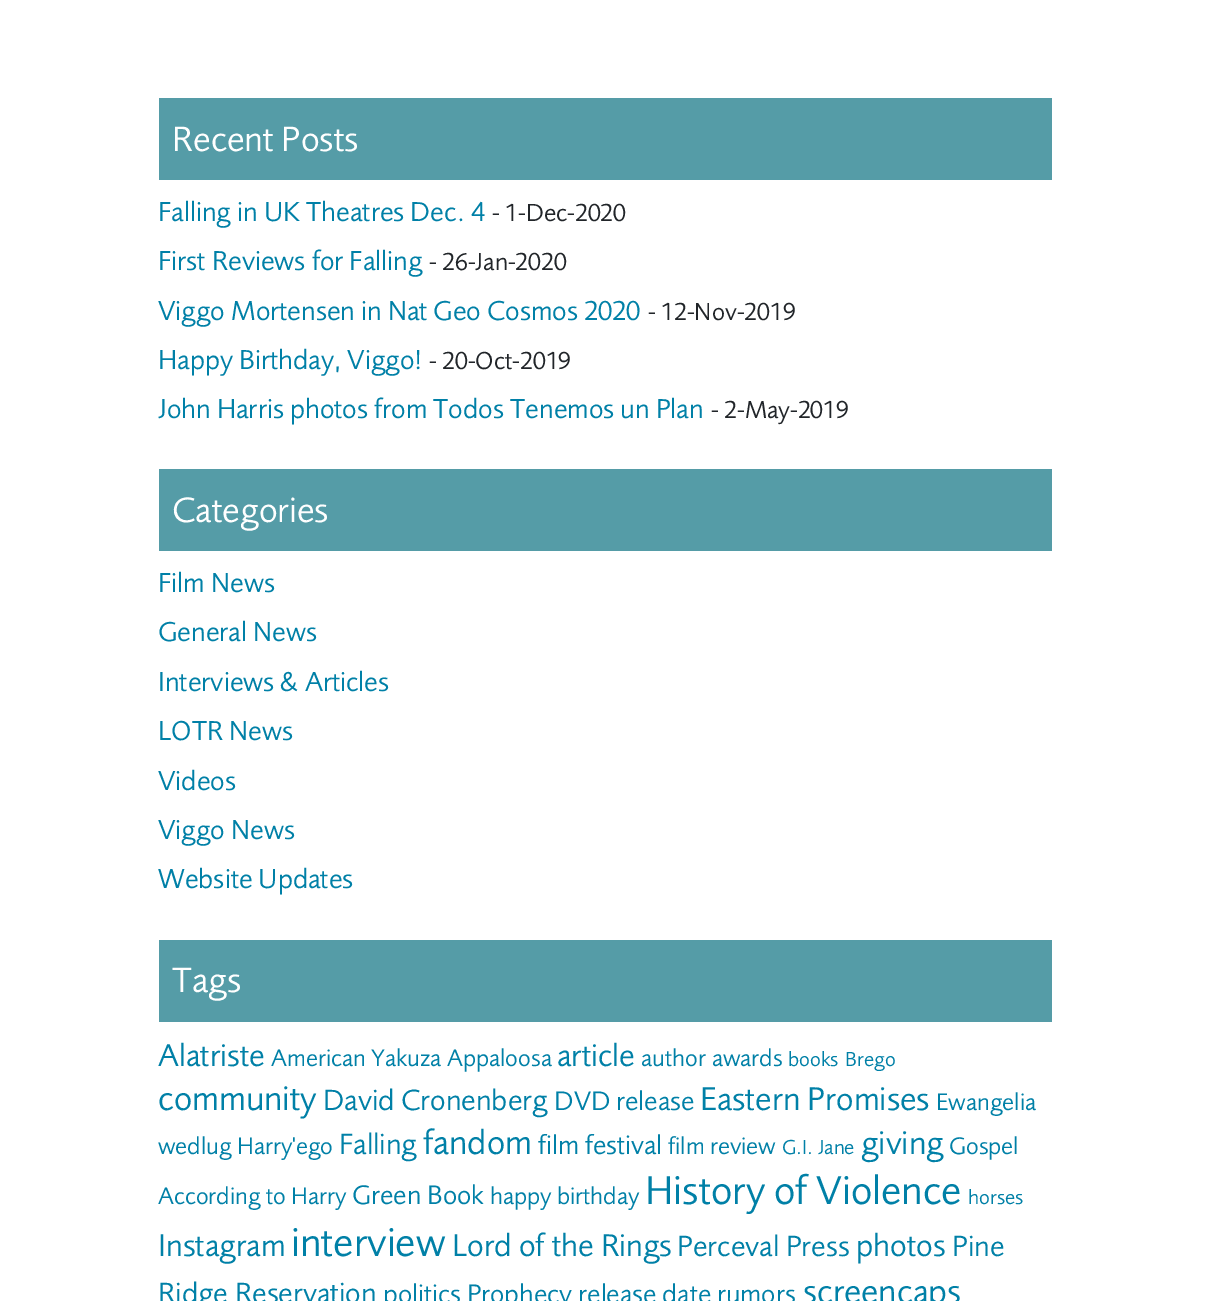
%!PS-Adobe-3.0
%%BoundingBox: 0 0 1208 1301
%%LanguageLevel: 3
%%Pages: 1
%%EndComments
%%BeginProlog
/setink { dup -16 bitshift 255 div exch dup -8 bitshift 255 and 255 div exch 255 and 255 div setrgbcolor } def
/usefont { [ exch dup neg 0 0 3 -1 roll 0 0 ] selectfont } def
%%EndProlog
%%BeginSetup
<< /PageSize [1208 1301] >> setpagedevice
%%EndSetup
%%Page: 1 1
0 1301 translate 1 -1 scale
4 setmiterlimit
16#FFFFFF setink
0 0 1208 1301 rectfill
16#559CA7 setink
159 98 893 82 rectfill
/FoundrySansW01-Regular 36.5 usefont
16#FFFFFF setink
172 151 moveto (Recent Posts) show
/FoundrySansW01-Regular 28.3 usefont
16#0080A7 setink
158 221 moveto (Falling in UK Theatres Dec. 4) show
/FoundrySansW01-Regular 25.5 usefont
16#212529 setink
492 221 moveto (- 1-Dec-2020) show
/FoundrySansW01-Regular 28.3 usefont
16#0080A7 setink
158 270 moveto (First Reviews for Falling) show
/FoundrySansW01-Regular 25.5 usefont
16#212529 setink
429 270 moveto (- 26-Jan-2020) show
/FoundrySansW01-Regular 28.3 usefont
16#0080A7 setink
158 320 moveto (Viggo Mortensen in Nat Geo Cosmos 2020) show
/FoundrySansW01-Regular 25.5 usefont
16#212529 setink
648 320 moveto (- 12-Nov-2019) show
/FoundrySansW01-Regular 28.3 usefont
16#0080A7 setink
158 369 moveto (Happy Birthday, Viggo!) show
/FoundrySansW01-Regular 25.5 usefont
16#212529 setink
429 369 moveto (- 20-Oct-2019) show
/FoundrySansW01-Regular 28.3 usefont
16#0080A7 setink
158 418 moveto (John Harris photos from Todos Tenemos un Plan) show
/FoundrySansW01-Regular 25.5 usefont
16#212529 setink
711 418 moveto (- 2-May-2019) show
16#559CA7 setink
159 469 893 82 rectfill
/FoundrySansW01-Regular 36.5 usefont
16#FFFFFF setink
172 522 moveto (Categories) show
/FoundrySansW01-Regular 28.3 usefont
16#0080A7 setink
[
    [(Film News) 158 592]
    [(General News) 158 641]
    [(Interviews & Articles) 158 691]
    [(LOTR News) 158 740]
    [(Videos) 158 790]
    [(Viggo News) 158 839]
    [(Website Updates) 158 888]
] { aload pop moveto show } forall
16#559CA7 setink
159 940 893 82 rectfill
/FoundrySansW01-Regular 36.5 usefont
16#FFFFFF setink
172 992 moveto (Tags) show
/FoundrySansW01-Regular 32.5 usefont
16#0080A7 setink
158 1066 moveto (Alatriste) show
/FoundrySansW01-Regular 24.75 usefont
271 1066 moveto (American Yakuza) show
447 1066 moveto (Appaloosa) show
/FoundrySansW01-Regular 32.5 usefont
557 1066 moveto (article) show
/FoundrySansW01-Regular 24.75 usefont
641 1066 moveto (author) show
712 1066 moveto (awards) show
/FoundrySansW01-Regular 21 usefont
788 1066 moveto (books) show
845 1066 moveto (Brego) show
/FoundrySansW01-Regular 35.5 usefont
158 1110 moveto (community) show
/FoundrySansW01-Regular 30.25 usefont
323 1110 moveto (David Cronenberg) show
/FoundrySansW01-Regular 27.75 usefont
554 1110 moveto (DVD release) show
/FoundrySansW01-Regular 34 usefont
700 1110 moveto (Eastern Promises) show
/FoundrySansW01-Regular 24.75 usefont
936 1110 moveto (Ewangelia) show
158 1154 moveto (wedlug Harry'ego) show
/FoundrySansW01-Regular 30.25 usefont
339 1154 moveto (Falling) show
/FoundrySansW01-Regular 35.5 usefont
423 1154 moveto (fandom) show
/FoundrySansW01-Regular 27.75 usefont
538 1154 moveto (film festival) show
/FoundrySansW01-Regular 24.75 usefont
668 1154 moveto (film review) show
/FoundrySansW01-Regular 21 usefont
782 1154 moveto (G.I. Jane) show
/FoundrySansW01-Regular 34 usefont
861 1154 moveto (giving) show
/FoundrySansW01-Regular 24.75 usefont
949 1154 moveto (Gospel) show
158 1204 moveto (According to Harry) show
/FoundrySansW01-Regular 27.75 usefont
352 1204 moveto (Green Book) show
/FoundrySansW01-Regular 24.75 usefont
490 1204 moveto (happy birthday) show
/FoundrySansW01-Regular 41.75 usefont
645 1204 moveto (History of Violence) show
/FoundrySansW01-Regular 21 usefont
968 1204 moveto (horses) show
/FoundrySansW01-Regular 32.5 usefont
158 1256 moveto (Instagram) show
/FoundrySansW01-Regular 41.75 usefont
291 1256 moveto (interview) show
/FoundrySansW01-Regular 32.5 usefont
452 1256 moveto (Lord of the Rings) show
/FoundrySansW01-Regular 30.25 usefont
677 1256 moveto (Perceval Press) show
/FoundrySansW01-Regular 32.5 usefont
856 1256 moveto (photos) show
/FoundrySansW01-Regular 30.25 usefont
952 1256 moveto (Pine) show
158 1303 moveto (Ridge Reservation) show
/FoundrySansW01-Regular 27.75 usefont
383 1303 moveto (politics Prophecy release date rumors) show
/FoundrySansW01-Regular 35.5 usefont
803 1303 moveto (screencaps) show
showpage
%%EOF
